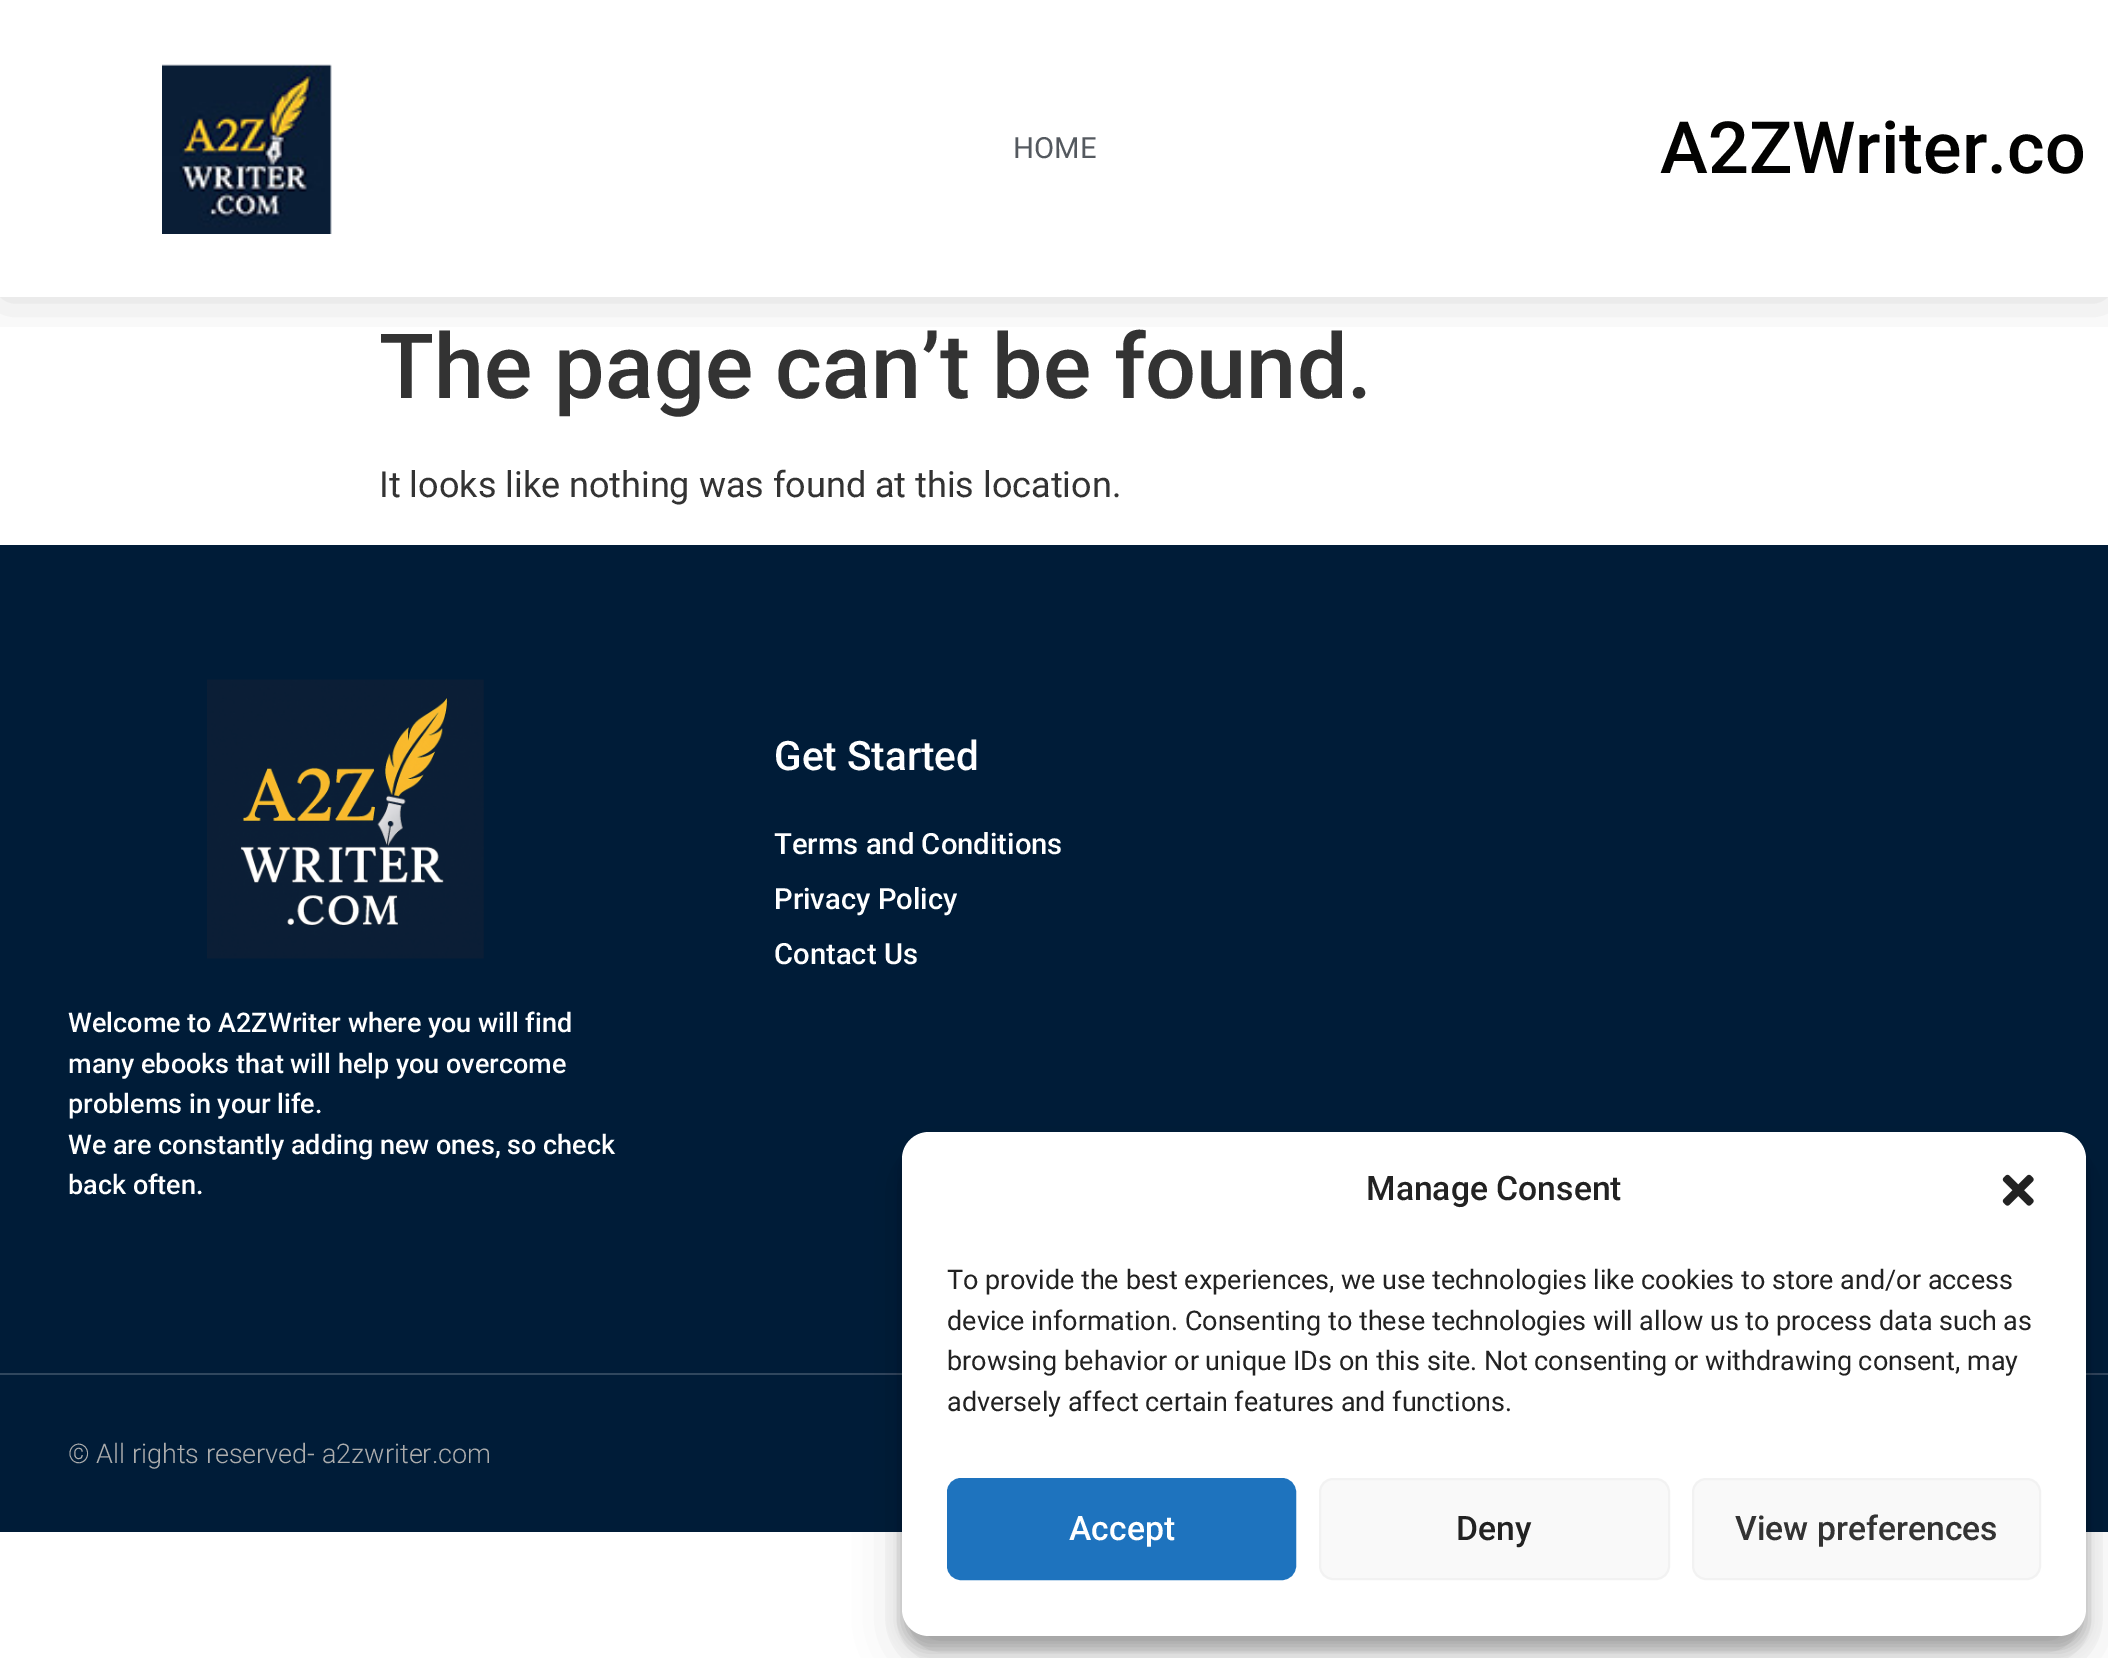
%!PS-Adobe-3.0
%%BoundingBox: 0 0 2108 1658
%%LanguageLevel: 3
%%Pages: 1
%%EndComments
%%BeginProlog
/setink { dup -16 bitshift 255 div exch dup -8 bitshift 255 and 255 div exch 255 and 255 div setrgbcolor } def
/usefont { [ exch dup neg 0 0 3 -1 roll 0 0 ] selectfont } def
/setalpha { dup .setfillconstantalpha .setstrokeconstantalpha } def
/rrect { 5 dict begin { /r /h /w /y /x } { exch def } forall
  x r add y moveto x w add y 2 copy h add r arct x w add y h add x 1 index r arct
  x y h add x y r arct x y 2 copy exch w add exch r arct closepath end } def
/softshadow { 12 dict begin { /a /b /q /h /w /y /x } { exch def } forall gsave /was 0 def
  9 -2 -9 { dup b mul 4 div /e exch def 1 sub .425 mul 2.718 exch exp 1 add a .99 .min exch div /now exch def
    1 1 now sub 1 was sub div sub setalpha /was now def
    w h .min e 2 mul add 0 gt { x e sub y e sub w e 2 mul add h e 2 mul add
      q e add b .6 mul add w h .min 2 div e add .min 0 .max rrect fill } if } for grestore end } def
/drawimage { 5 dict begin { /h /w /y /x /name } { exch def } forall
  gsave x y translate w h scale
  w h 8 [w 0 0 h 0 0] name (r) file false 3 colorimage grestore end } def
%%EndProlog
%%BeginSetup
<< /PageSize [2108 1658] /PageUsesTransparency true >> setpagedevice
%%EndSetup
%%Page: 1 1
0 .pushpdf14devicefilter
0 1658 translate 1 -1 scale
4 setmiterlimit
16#FFFFFF setink
0 0 2108 1658 rectfill
gsave
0 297 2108 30 rectclip
16#000000 setink
0 0 2108 297 0 27 0.15 softshadow
grestore
(img1.raw) 162 64 170 170 drawimage
/Roboto-Regular 29.25 usefont
16#54595F setink
1013 158 moveto (HOME) show
/Roboto-Medium 72 usefont
16#020201 setink
1660 173 moveto (A2ZWriter.co) show
/Roboto-Medium 90 usefont
16#333333 setink
379 398 moveto (The page can’t be found.) show
/Roboto-Regular 36 usefont
379 497 moveto (It looks like nothing was found at this location.) show
16#001C38 setink
0 545 2108 828 rectfill
/Roboto-Medium 40.5 usefont
16#FFFFFF setink
774 770 moveto (Get Started) show
/Roboto-Medium 29.25 usefont
[
    [(Terms and Conditions) 774 854]
    [(Privacy Policy) 774 909]
    [(Contact Us) 774 964]
] { aload pop moveto show } forall
(img2.raw) 207 679 277 280 drawimage
/Roboto-Medium 27 usefont
[
    [(Welcome to A2ZWriter where you will find) 68 1032]
    [(many ebooks that will help you overcome) 68 1073]
    [(problems in your life.) 68 1113]
    [(We are constantly adding new ones, so check) 68 1154]
    [(back often.) 68 1194]
] { aload pop moveto show } forall
16#001C38 setink
0 1375 2108 157 rectfill
16#30475E setink
0 1373 2108 2 rectfill
/Roboto-Light 27 usefont
16#ADADAD setink
68 1463 moveto (© All rights reserved- a2zwriter.com) show
16#000000 setink
902 1145 1184 504 27 7 0.23 softshadow
902 1154 1184 504 27 22.5 0.19 softshadow
16#FFFFFF setink
902 1132 1184 504 27 rrect fill
/Roboto-Medium 33.75 usefont
16#222222 setink
1366 1200 moveto (Manage Consent) show
(img3.raw) 2002 1174 32 32 drawimage
/Roboto-Regular 27 usefont
[
    [(To provide the best experiences, we use technologies like cookies to store and/or access) 947 1289]
    [(device information. Consenting to these technologies will allow us to process data such as) 947 1330]
    [(browsing behavior or unique IDs on this site. Not consenting or withdrawing consent, may) 947 1370]
    [(adversely affect certain features and functions.) 947 1411]
] { aload pop moveto show } forall
16#1E73BE setink
948 1479 347 100 13 rrect gsave fill grestore
2 setlinewidth
stroke
/Roboto-Medium 33.75 usefont
16#FFFFFF setink
1069 1540 moveto (Accept) show
16#F9F9F9 setink
1320 1479 349 100 13 rrect gsave fill grestore
16#F2F2F2 setink
stroke
16#222222 setink
1456 1540 moveto (Deny) show
16#F9F9F9 setink
1693 1479 347 100 13 rrect gsave fill grestore
16#F2F2F2 setink
stroke
16#333333 setink
1735 1540 moveto (View preferences) show
.poppdf14devicefilter showpage
%%EOF
